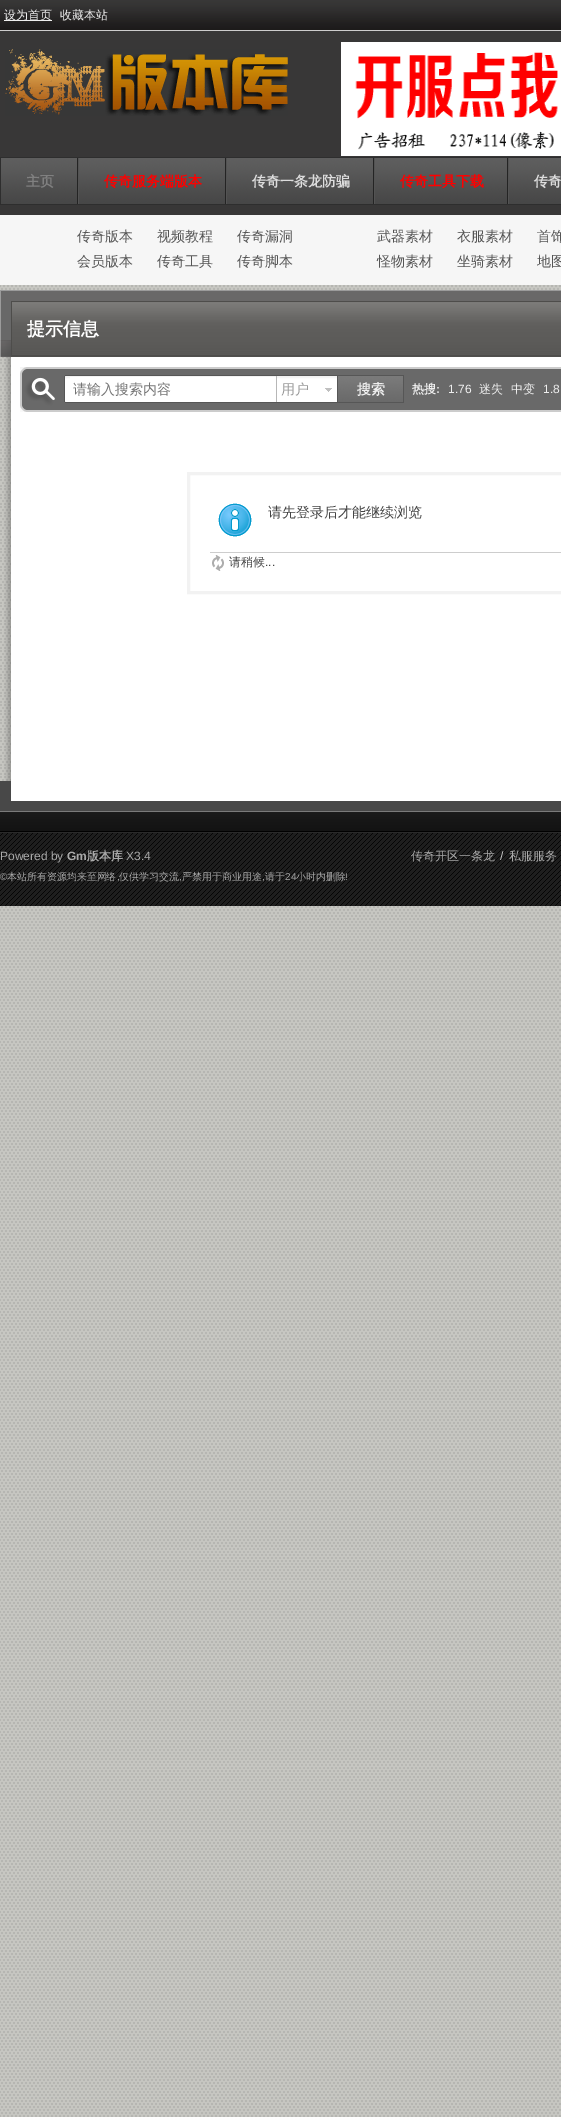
%!PS-Adobe-3.0
%%BoundingBox: 0 0 561 2117
%%LanguageLevel: 3
%%Pages: 1
%%EndComments
%%BeginProlog
/setink { dup -16 bitshift 255 div exch dup -8 bitshift 255 and 255 div exch 255 and 255 div setrgbcolor } def
/usefont { [ exch dup neg 0 0 3 -1 roll 0 0 ] selectfont } def
/drawimage { 5 dict begin { /h /w /y /x /name } { exch def } forall
  gsave x y translate w h scale
  w h 8 [w 0 0 h 0 0] name (r) file false 3 colorimage grestore end } def
%%EndProlog
%%BeginSetup
<< /PageSize [561 2117] >> setpagedevice
%%EndSetup
%%Page: 1 1
0 2117 translate 1 -1 scale
4 setmiterlimit
16#FFFFFF setink
0 0 561 2117 rectfill
(img1.raw) 0 285 561 1832 drawimage
(img2.raw) 0 0 561 30 drawimage
16#CDCDCD setink
0 30 561 1 rectfill
16#EEEEEE setink
4 20 48 1 rectfill
/WenQuanYiZenHei-Medium 12 usefont
4 19 moveto (设为首页) show
60 19 moveto (收藏本站) show
16#383737 setink
0 31 561 184 rectfill
(img3.raw) 5 49 283 67 drawimage
(img4.raw) 341 42 220 114 drawimage
(img5.raw) 1 157 560 48 drawimage
16#2E2E2E setink
0 157 1 48 rectfill
(img6.raw) 77 158 2 46 drawimage
/WenQuanYiZenHei-Bold 14 usefont
16#808080 setink
26 186 moveto (主页) show
(img6.raw) 225 158 2 46 drawimage
16#FF0000 setink
104 186 moveto (传奇服务端版本) show
(img6.raw) 373 158 2 46 drawimage
16#DDDDDD setink
252 186 moveto (传奇一条龙防骗) show
(img6.raw) 507 158 2 46 drawimage
16#FF0000 setink
400 186 moveto (传奇工具下载) show
16#DDDDDD setink
534 186 moveto (传奇) show
16#F6F6F6 setink
0 215 561 70 rectfill
/WenQuanYiZenHei-Medium 14 usefont
16#555555 setink
[
    [(传奇版本) 77 241]
    [(视频教程) 157 241]
    [(传奇漏洞) 237 241]
    [(会员版本) 77 266]
    [(传奇工具) 157 266]
    [(传奇脚本) 237 266]
    [(武器素材) 377 241]
    [(衣服素材) 457 241]
    [(首饰) 537 241]
    [(怪物素材) 377 266]
    [(坐骑素材) 457 266]
    [(地图) 537 266]
] { aload pop moveto show } forall
(img7.raw) 0 812 561 94 drawimage
16#FFFFFF setink
11 357 550 424 rectfill
(img8.raw) 0 357 11 424 drawimage
(img9.raw) 0 290 561 11 drawimage
(img10.raw) 0 291 11 66 drawimage
(img11.raw) 12 302 549 55 drawimage
16#4E4D4B setink
11 301 550 1 rectfill
11 301 1 56 rectfill
/WenQuanYiZenHei-Bold 18 usefont
16#FFFFFF setink
27 335 moveto (提示信息) show
(img12.raw) 0 781 561 31 drawimage
16#484848 setink
0 781 11 20 rectfill
(img13.raw) 70 367 491 45 drawimage
(img14.raw) 20 367 50 45 drawimage
(img15.raw) 70 375 206 28 drawimage
16#FFFFFF setink
70 377 206 2 rectfill
/WenQuanYiZenHei-Medium 14 usefont
16#757575 setink
73 394 moveto (请输入搜索内容) show
(img16.raw) 276 375 61 28 drawimage
(img17.raw) 325 388 7 4 drawimage
16#999999 setink
281 394 moveto (用户) show
(img18.raw) 337 375 67 28 drawimage
/WenQuanYiZenHei-Bold 14 usefont
16#EEEEEE setink
357 394 moveto (搜索) show
/WenQuanYiZenHei-Bold 12 usefont
412 393 moveto (热搜) show
/LiberationSans-Bold 12 usefont
436 393 moveto (:) show
/LiberationSans-Regular 12 usefont
448 393 moveto (1.76) show
/WenQuanYiZenHei-Medium 12 usefont
479 393 moveto (迷失) show
511 393 moveto (中变) show
/LiberationSans-Regular 12 usefont
543 393 moveto (1.8) show
16#F2F2F2 setink
3 setlinewidth
188.5 473.5 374 119 rectstroke
(img19.raw) 218 503 34 34 drawimage
/WenQuanYiZenHei-Medium 14 usefont
16#444444 setink
268 517 moveto (请先登录后才能继续浏览) show
16#CDCDCD setink
210 552 351 1 rectfill
(img20.raw) 212 555 12 16 drawimage
/WenQuanYiZenHei-Medium 12 usefont
16#444444 setink
229 566 moveto (请稍候) show
/LiberationSans-Regular 12 usefont
265 566 moveto (...) show
16#AAAAAA setink
0 860 moveto (Powered by) show
/LiberationSans-Bold 12 usefont
67 860 moveto (Gm) show
/WenQuanYiZenHei-Bold 12 usefont
87 860 moveto (版本库) show
/LiberationSans-Regular 12 usefont
126 860 moveto (X3.4) show
/LiberationSans-Regular 9.95 usefont
0 880 moveto (©) show
/WenQuanYiZenHei-Medium 9.95 usefont
7 880 moveto (本站所有资源均来至网络 仅供学习交流 严禁用于商业用途 请于) show
/LiberationSans-Regular 9.95 usefont
285 880 moveto (24) show
/WenQuanYiZenHei-Medium 9.95 usefont
296 880 moveto (小时内删除) show
/LiberationSans-Regular 9.95 usefont
[
    [(!) 345 880]
    [(,) 117 880]
    [(,) 179 880]
    [(,) 262 880]
] { aload pop moveto show } forall
/WenQuanYiZenHei-Medium 12 usefont
411 860 moveto (传奇开区一条龙) show
/LiberationSans-Regular 12 usefont
16#CCCCCC setink
500 860 moveto (/) show
/WenQuanYiZenHei-Medium 12 usefont
16#AAAAAA setink
509 860 moveto (私服服务) show
showpage
%%EOF
